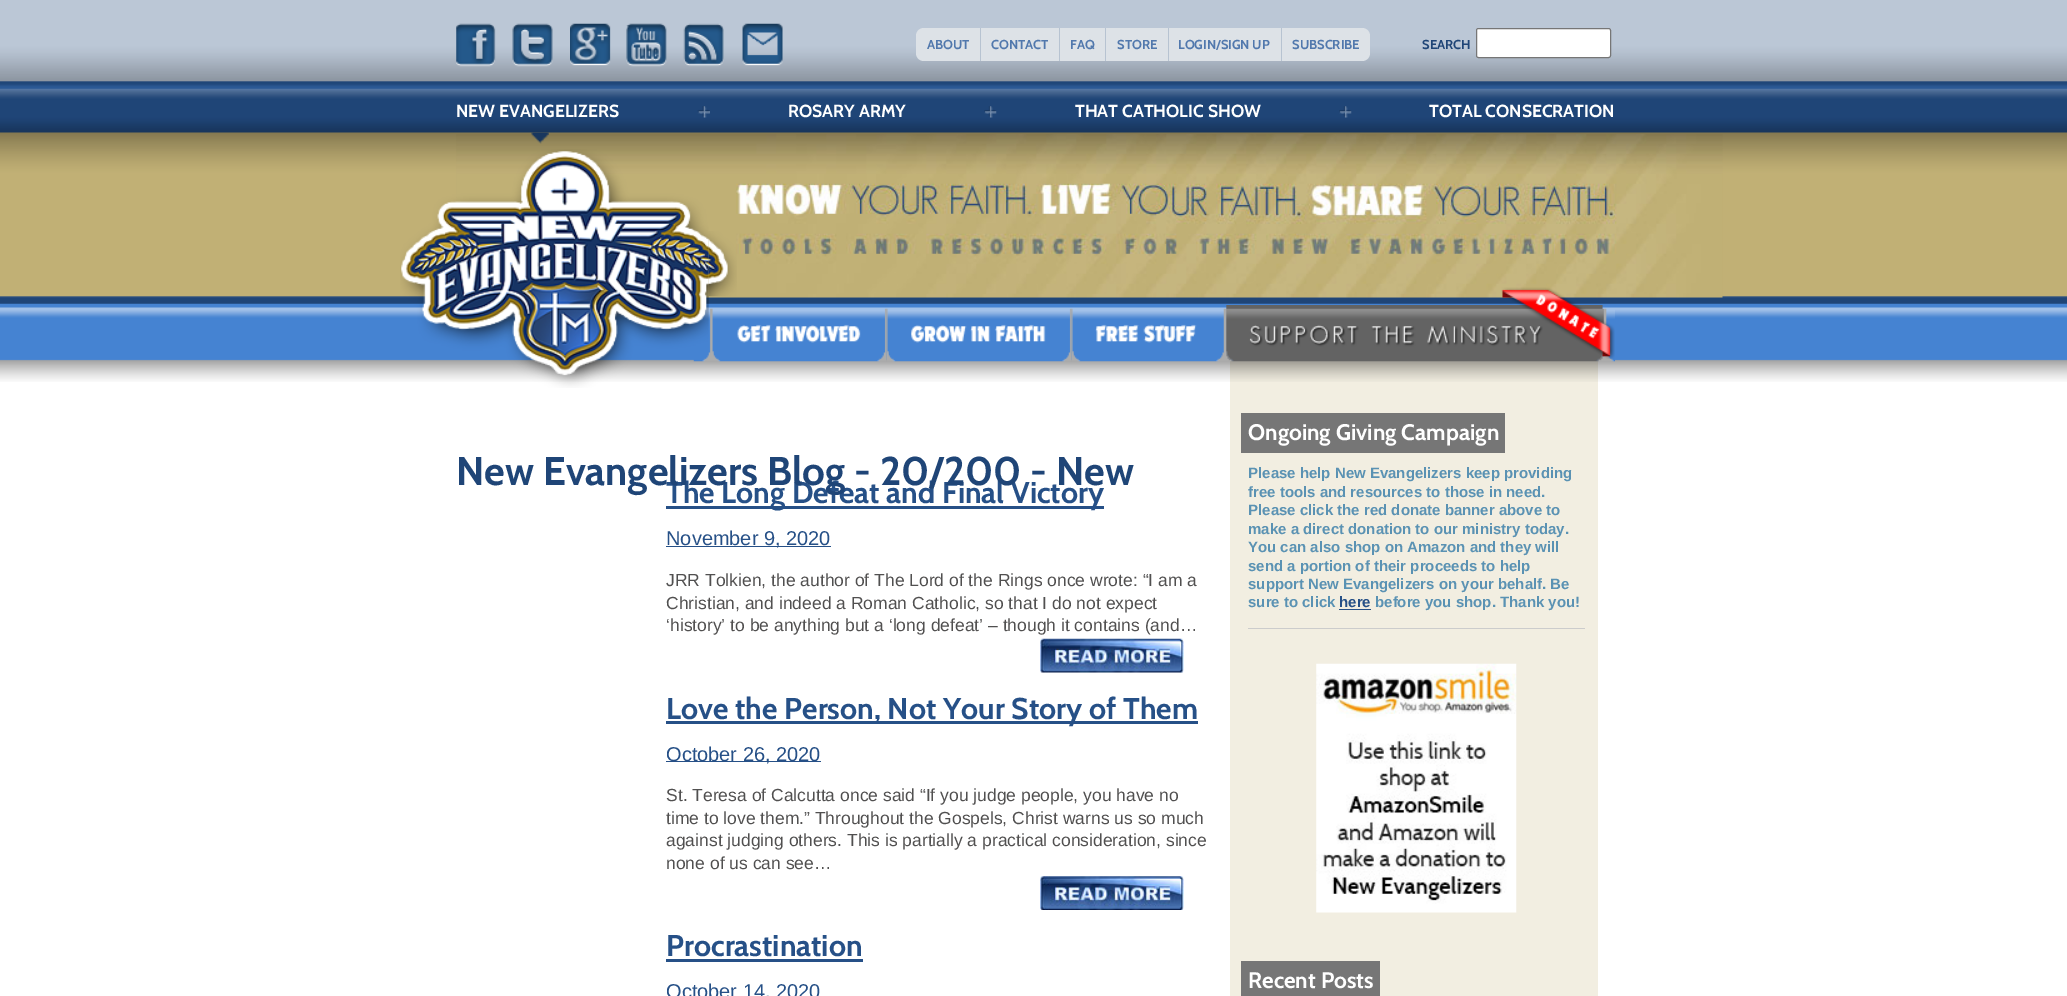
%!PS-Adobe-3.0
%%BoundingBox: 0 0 2067 996
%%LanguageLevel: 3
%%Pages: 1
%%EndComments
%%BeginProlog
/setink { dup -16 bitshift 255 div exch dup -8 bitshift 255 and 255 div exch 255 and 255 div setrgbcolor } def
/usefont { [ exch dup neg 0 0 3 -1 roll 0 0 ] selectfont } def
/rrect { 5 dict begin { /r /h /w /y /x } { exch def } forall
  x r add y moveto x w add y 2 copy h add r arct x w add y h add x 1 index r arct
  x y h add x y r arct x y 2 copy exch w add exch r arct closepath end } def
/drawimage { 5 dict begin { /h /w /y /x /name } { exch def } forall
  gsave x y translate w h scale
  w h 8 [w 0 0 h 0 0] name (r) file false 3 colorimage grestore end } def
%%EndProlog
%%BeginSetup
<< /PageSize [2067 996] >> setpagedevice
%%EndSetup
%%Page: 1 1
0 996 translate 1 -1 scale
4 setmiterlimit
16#FFFFFF setink
0 0 2067 996 rectfill
16#F2EEE1 setink
1230 361 368 635 rectfill
(img1.raw) 0 0 2067 382 drawimage
(img2.raw) 456 23 40 44 drawimage
(img3.raw) 512 23 41 44 drawimage
(img4.raw) 570 23 41 43 drawimage
(img5.raw) 626 23 41 44 drawimage
(img6.raw) 683 23 41 44 drawimage
(img7.raw) 742 23 41 43 drawimage
16#DDE2E7 setink
924 28 moveto 981 28 lineto 981 61 lineto 924 61 lineto 919.5 61 916 57.5 916 53 curveto 916 36 lineto 916 31.5 919.5 28 924 28 curveto closepath fill
16#B7C3D1 setink
980 28 1 33 rectfill
/Cabin-Bold 13 usefont
16#5178AD setink
927 49 moveto (ABOUT) show
16#DDE2E7 setink
981 28 78 33 rectfill
16#B7C3D1 setink
1059 28 1 33 rectfill
16#5178AD setink
991 49 moveto (CONTACT) show
16#DDE2E7 setink
1060 28 45 33 rectfill
16#B7C3D1 setink
1105 28 1 33 rectfill
16#5178AD setink
1070 49 moveto (FAQ) show
16#DDE2E7 setink
1106 28 62 33 rectfill
16#B7C3D1 setink
1168 28 1 33 rectfill
16#5178AD setink
1117 49 moveto (STORE) show
16#DDE2E7 setink
1169 28 114 33 rectfill
16#B7C3D1 setink
1281 28 1 33 rectfill
16#5178AD setink
1178 49 moveto (LOGIN/SIGN UP) show
16#DDE2E7 setink
1283 28 moveto 1362 28 lineto 1366.5 28 1370 31.5 1370 36 curveto 1370 53 lineto 1370 57.5 1366.5 61 1362 61 curveto 1283 61 lineto closepath fill
16#5178AD setink
1292 49 moveto (SUBSCRIBE) show
16#1F4577 setink
1422 49 moveto (SEARCH) show
16#FFFFFF setink
1476.5 28.5 134 29 2 rrect gsave fill grestore
16#767676 setink
stroke
/Cabin-Bold 17.5 usefont
16#FFFFFF setink
456 117 moveto (NEW EVANGELIZERS) show
(img12.raw) 456 134 1267 164 drawimage
(img8.raw) 531 132 18 12 drawimage
(img9.raw) 697 106 13 12 drawimage
788 117 moveto (ROSARY ARMY) show
(img10.raw) 984 106 13 12 drawimage
1075 117 moveto (THAT CATHOLIC SHOW) show
(img11.raw) 1339 106 13 12 drawimage
1429 117 moveto (TOTAL CONSECRATION) show
(img15.raw) 693 308 194 54 drawimage
(img13.raw) 400 149 309 239 drawimage
(img14.raw) 708 231 29 66 drawimage
(img16.raw) 886 308 186 54 drawimage
(img17.raw) 1071 308 154 54 drawimage
(img18.raw) 1225 305 390 57 drawimage
(img19.raw) 1501 287 114 72 drawimage
16#265087 setink
666 506 438 3 rectfill
/Cabin-Bold 30 usefont
666 503 moveto (The Long Defeat and Final Victory) show
/Cabin-Bold 40 usefont
16#1F4577 setink
456 485 moveto (New Evangelizers Blog - 20/200 - New) show
16#265087 setink
666 546 165 1 rectfill
/LiberationSans-Regular 20 usefont
666 545 moveto (November 9, 2020) show
/LiberationSans-Regular 17.5 usefont
16#515050 setink
[
    [(JRR Tolkien, the author of The Lord of the Rings once wrote: “I am a) 666 586]
    [(Christian, and indeed a Roman Catholic, so that I do not expect) 666 609]
    [(‘history’ to be anything but a ‘long defeat’ – though it contains \(and…) 666 631]
] { aload pop moveto show } forall
(img20.raw) 1040 638 144 35 drawimage
16#767676 setink
1241 413 264 40 rectfill
/Cabin-Bold 22.5 usefont
16#FFFFFF setink
1248 440 moveto (Ongoing Giving Campaign) show
/LiberationSans-Bold 15 usefont
16#5A92B3 setink
[
    [(Please help New Evangelizers keep providing) 1248 478]
    [(free tools and resources to those in need.) 1248 497]
    [(Please click the red donate banner above to) 1248 515]
    [(make a direct donation to our ministry today.) 1248 534]
    [(You can also shop on Amazon and they will) 1248 552]
    [(send a portion of their proceeds to help) 1248 571]
    [(support New Evangelizers on your behalf. Be) 1248 589]
    [(sure to click) 1248 607]
] { aload pop moveto show } forall
16#265087 setink
1339 607 moveto (here) show
1339 609 32 1 rectfill
16#5A92B3 setink
1375 607 moveto (before you shop. Thank you!) show
16#CCCCCC setink
1248 628 337 1 rectfill
(img21.raw) 1316 663 201 250 drawimage
16#767676 setink
1241 961 139 35 rectfill
/Cabin-Bold 22.5 usefont
16#FFFFFF setink
1248 988 moveto (Recent Posts) show
16#265087 setink
666 721 532 3 rectfill
/Cabin-Bold 30 usefont
666 719 moveto (Love the Person, Not Your Story of Them) show
666 761 155 1 rectfill
/LiberationSans-Regular 20 usefont
666 761 moveto (October 26, 2020) show
/LiberationSans-Regular 17.5 usefont
16#515050 setink
[
    [(St. Teresa of Calcutta once said “If you judge people, you have no) 666 801]
    [(time to love them.” Throughout the Gospels, Christ warns us so much) 666 824]
    [(against judging others. This is partially a practical consideration, since) 666 846]
    [(none of us can see…) 666 869]
] { aload pop moveto show } forall
(img22.raw) 1040 876 144 34 drawimage
/Cabin-Bold 30 usefont
16#265087 setink
666 956 moveto (Procrastination) show
666 959 197 3 rectfill
/LiberationSans-Regular 20 usefont
666 998 moveto (October 14, 2020) show
showpage
%%EOF
